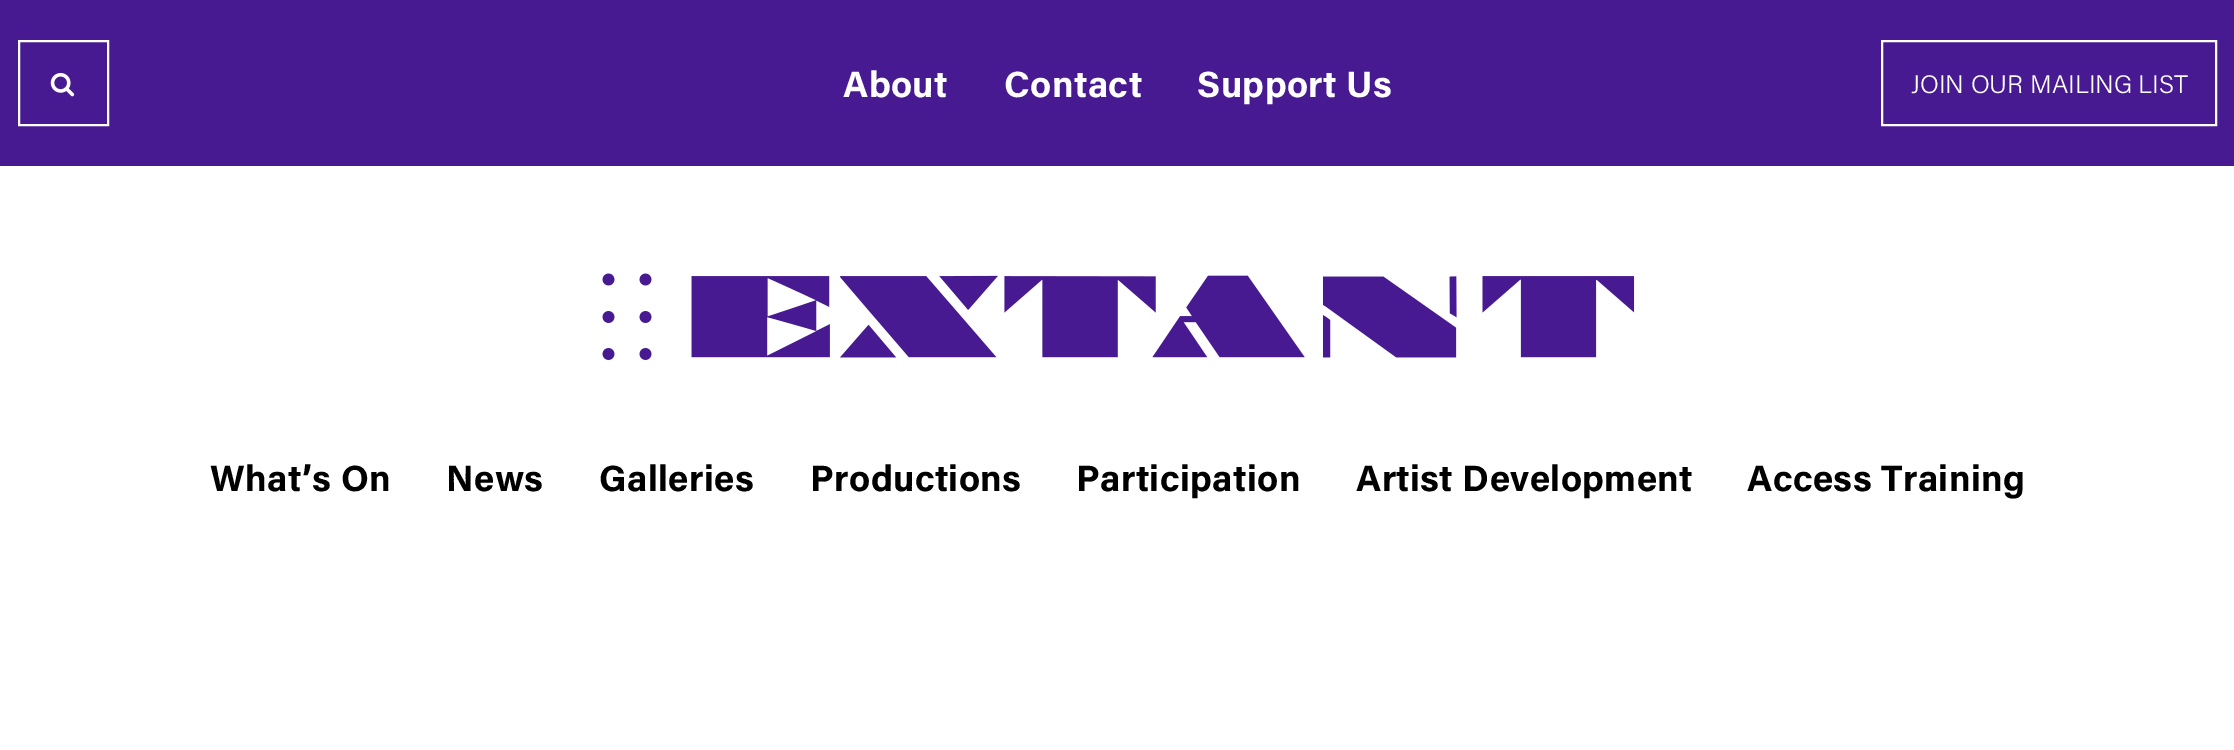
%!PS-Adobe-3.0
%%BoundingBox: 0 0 2234 750
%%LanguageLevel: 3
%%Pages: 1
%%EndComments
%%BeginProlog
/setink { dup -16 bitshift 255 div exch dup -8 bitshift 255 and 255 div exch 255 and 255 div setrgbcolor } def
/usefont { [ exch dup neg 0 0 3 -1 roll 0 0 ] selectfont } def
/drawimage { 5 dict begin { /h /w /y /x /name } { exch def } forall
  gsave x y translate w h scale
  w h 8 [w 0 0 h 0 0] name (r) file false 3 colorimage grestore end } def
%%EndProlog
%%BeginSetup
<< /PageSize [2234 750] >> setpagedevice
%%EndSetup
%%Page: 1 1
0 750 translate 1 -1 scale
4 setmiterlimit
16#FFFFFF setink
0 0 2234 750 rectfill
16#481A91 setink
0 0 2234 166 rectfill
16#FFFFFF setink
2 setlinewidth
19 41 89 84 rectstroke
(img1.raw) 50 72 25 25 drawimage
/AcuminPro-Bold 36.5 usefont
843 97 moveto 0.4 0 (About) ashow
1004 97 moveto 0.4 0 (Contact) ashow
1197 97 moveto 0.4 0 (Support Us) ashow
1882 41 334 84 rectstroke
/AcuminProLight-Light 25.25 usefont
1911 93 moveto (JOIN OUR MAILING LIST) show
(img2.raw) 602 273 1033 87 drawimage
/AcuminPro-Bold 36.5 usefont
16#000000 setink
210 491 moveto 0.4 0 (What’s On) ashow
446 491 moveto 0.4 0 (News) ashow
599 491 moveto 0.4 0 (Galleries) ashow
810 491 moveto 0.4 0 (Productions) ashow
1076 491 moveto 0.4 0 (Participation) ashow
1356 491 moveto 0.4 0 (Artist Development) ashow
1747 491 moveto 0.4 0 (Access Training) ashow
showpage
%%EOF
